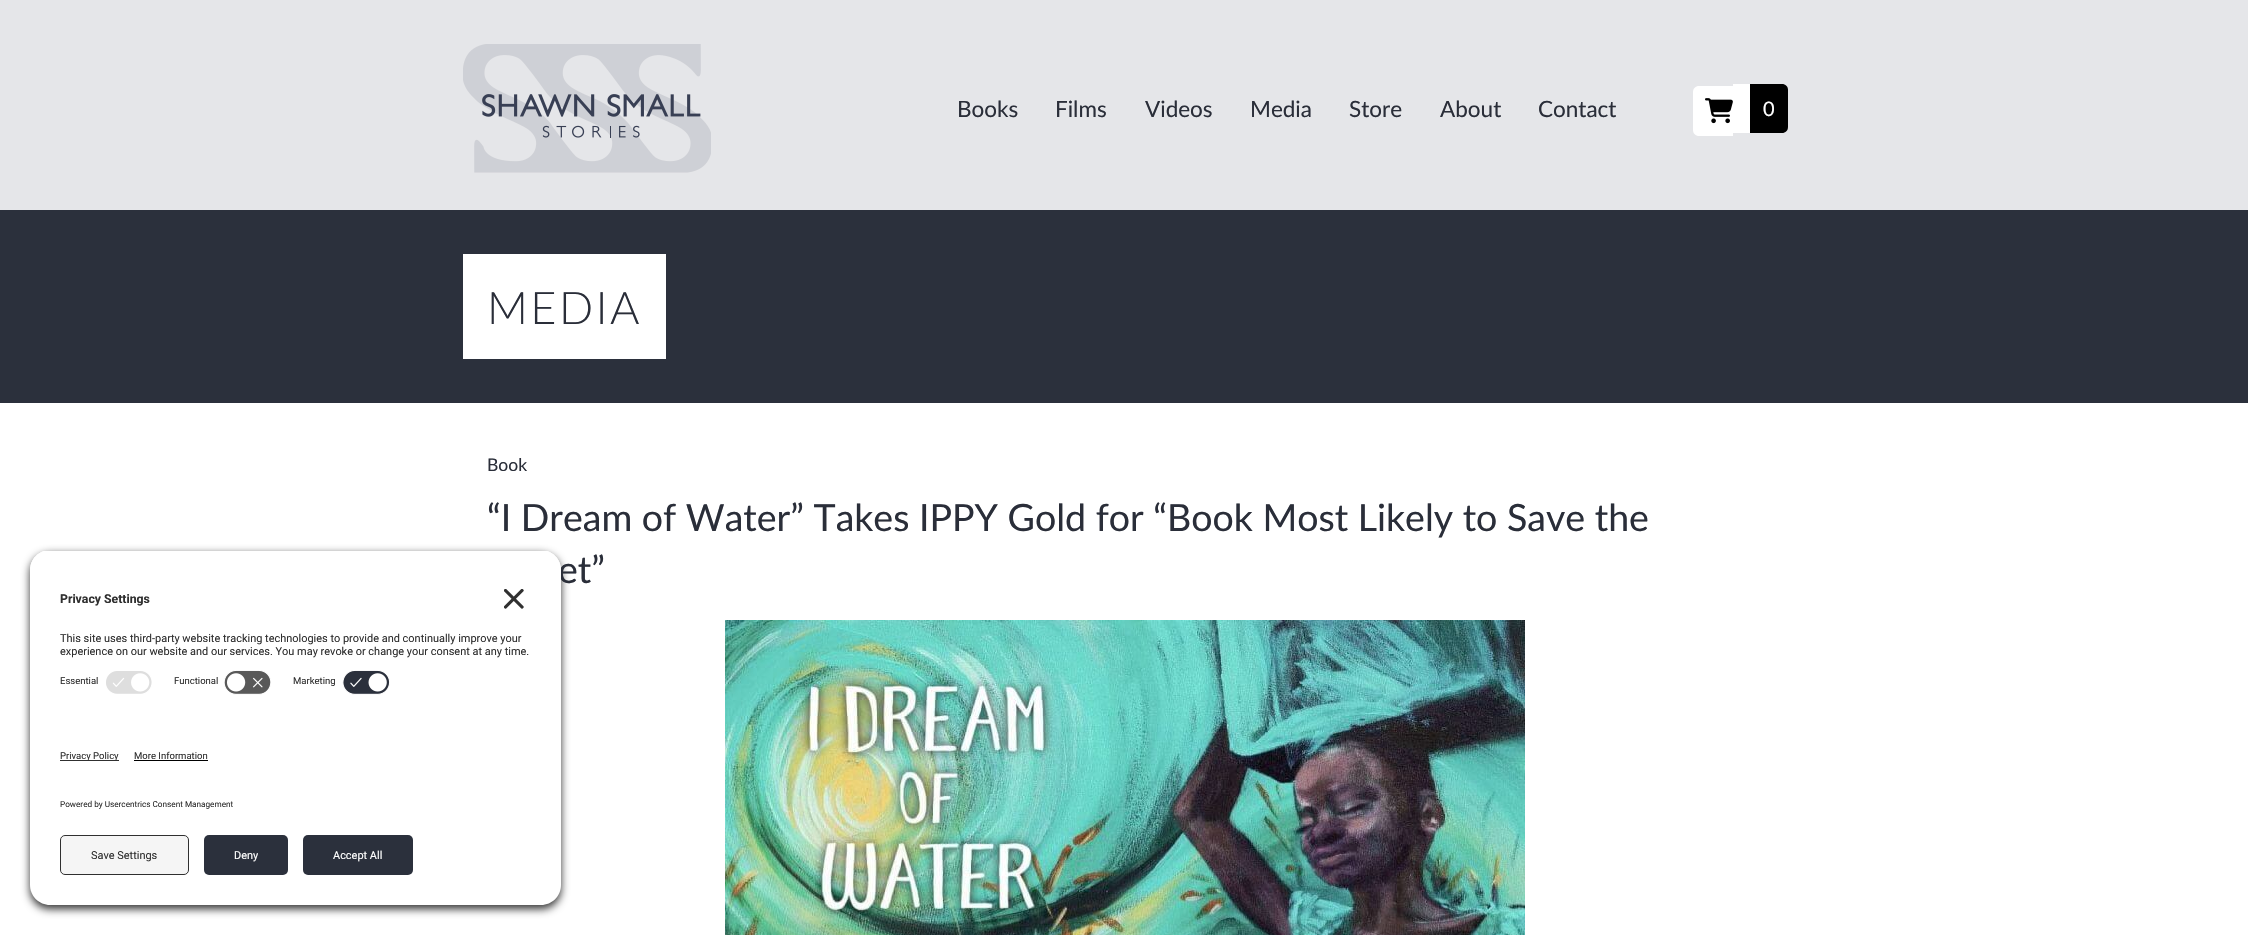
#include "include/core/SkBlurTypes.h"
#include "include/core/SkCanvas.h"
#include "include/core/SkData.h"
#include "include/core/SkFont.h"
#include "include/core/SkFontMgr.h"
#include "include/core/SkImage.h"
#include "include/core/SkMaskFilter.h"
#include "include/core/SkPaint.h"
#include "include/core/SkPathBuilder.h"
#include "include/core/SkTextBlob.h"
#include "include/effects/SkDashPathEffect.h"
#include "include/effects/SkGradientShader.h"
#include "include/utils/SkParsePath.h"

extern sk_sp<SkFontMgr> fontMgr;

void draw(SkCanvas* canvas) {
  SkPaint p;
  p.setAntiAlias(true);
  auto spacedText = [&](const char* s, float x, float y, const SkFont& font, const SkPaint& ink, float letter, float word) {
    std::vector<SkGlyphID> glyphs(font.countText(s, strlen(s), SkTextEncoding::kUTF8));
    std::vector<float> xs(glyphs.size());
    font.textToGlyphs(s, strlen(s), SkTextEncoding::kUTF8, glyphs);
    font.getXPos(glyphs, xs, x);
    float extra = 0;
    for (size_t i = 0; i < glyphs.size(); i++) {
      xs[i] += extra;
      extra += letter + word * (glyphs[i] == font.unicharToGlyph(' '));
    }
    canvas->drawTextBlob(SkTextBlob::MakeFromPosHGlyphs(glyphs, xs, y, font), 0, 0, ink);
  };
  canvas->clear(SK_ColorWHITE);
  p.setColor(SkColorSetRGB(229, 230, 233));
  canvas->drawRect(SkRect::MakeLTRB(0, 0, 2248, 210), p);
  canvas->drawImageRect(SkImages::DeferredFromEncodedData(SkData::MakeFromFileName("images/1.png")), SkRect::MakeLTRB(463, 44, 711, 173), SkSamplingOptions());
  p.setColor(SK_ColorWHITE);
  canvas->drawPath(SkPathBuilder().moveTo(1699, 86).lineTo(1733, 86).lineTo(1733, 136).lineTo(1699, 136).cubicTo(1695.5f, 136, 1693, 133.5f, 1693, 130).lineTo(1693, 92).cubicTo(1693, 88.5f, 1695.5f, 86, 1699, 86).close().detach(), p);
  canvas->drawRect(SkRect::MakeLTRB(1733, 84, 1750, 133), p);
  canvas->drawImageRect(SkImages::DeferredFromEncodedData(SkData::MakeFromFileName("images/2.png")), SkRect::MakeLTRB(1705, 98, 1733, 124), SkSamplingOptions());
  p.setColor(SK_ColorBLACK);
  canvas->drawPath(SkPathBuilder().moveTo(1750, 84).lineTo(1782, 84).cubicTo(1785.5f, 84, 1788, 86.5f, 1788, 90).lineTo(1788, 127).cubicTo(1788, 130.5f, 1785.5f, 133, 1782, 133).lineTo(1750, 133).close().detach(), p);
  p.setColor(SkColorSetRGB(43, 48, 60));
  canvas->drawRect(SkRect::MakeLTRB(0, 210, 2248, 403), p);
  p.setColor(SK_ColorWHITE);
  canvas->drawRect(SkRect::MakeLTRB(463, 254, 666, 359), p);
  canvas->drawImageRect(SkImages::DeferredFromEncodedData(SkData::MakeFromFileName("images/3.png")), SkRect::MakeLTRB(725, 620, 1525, 935), SkSamplingOptions());
  p.setColor(SkColorSetARGB(204, 0, 0, 0));
  p.setMaskFilter(SkMaskFilter::MakeBlur(kNormal_SkBlurStyle, 4.5f));
  canvas->drawRoundRect(SkRect::MakeLTRB(30, 554, 561, 909), 20, 20, p);
  p.setMaskFilter(nullptr);
  p.setColor(SK_ColorWHITE);
  canvas->drawPath(SkPathBuilder().moveTo(30, 714).lineTo(561, 714).lineTo(561, 885).cubicTo(561, 896, 552, 905, 541, 905).lineTo(50, 905).cubicTo(39, 905, 30, 896, 30, 885).close().detach(), p);
  p.setColor(SkColorSetRGB(48, 48, 48));
  canvas->drawRect(SkRect::MakeLTRB(60, 760, 119, 761), p);
  p.setColor(SK_ColorBLACK);
  canvas->drawRect(SkRect::MakeLTRB(134, 760, 208, 761), p);
  p.setColor(SkColorSetRGB(245, 245, 245));
  canvas->drawRoundRect(SkRect::MakeLTRB(60.5f, 835.5f, 188.5f, 874.5f), 4.5f, 4.5f, p);
  p.setStyle(SkPaint::kStroke_Style);
  p.setStrokeWidth(1);
  p.setColor(SkColorSetRGB(48, 48, 48));
  canvas->drawRoundRect(SkRect::MakeLTRB(60.5f, 835.5f, 188.5f, 874.5f), 4.5f, 4.5f, p);
  p.setStyle(SkPaint::kFill_Style);
  p.setColor(SkColorSetRGB(43, 48, 60));
  canvas->drawRoundRect(SkRect::MakeLTRB(204, 835, 288, 875), 5, 5, p);
  canvas->drawRoundRect(SkRect::MakeLTRB(303, 835, 413, 875), 5, 5, p);
  SkFont font1(fontMgr->matchFamilyStyle("Lato", SkFontStyle::Normal()), 22.5f);
  font1.setSubpixel(true);
  p.setColor(SkColorSetRGB(42, 46, 57));
  canvas->drawString("Books", 957, 117, font1, p);
  canvas->drawString("Films", 1055, 117, font1, p);
  canvas->drawString("Videos", 1145, 117, font1, p);
  canvas->drawString("Media", 1250, 117, font1, p);
  canvas->drawString("Store", 1349, 117, font1, p);
  canvas->drawString("About", 1440, 117, font1, p);
  canvas->drawString("Contact", 1538, 117, font1, p);
  SkFont font2(fontMgr->matchFamilyStyle("Lato", SkFontStyle::Normal()), 20);
  font2.setSubpixel(true);
  p.setColor(SK_ColorWHITE);
  canvas->drawString("0", 1763, 116, font2, p);
  SkFont font3(fontMgr->matchFamilyStyle("Lato", SkFontStyle(300, SkFontStyle::kNormal_Width, SkFontStyle::kUpright_Slant)), 45);
  font3.setSubpixel(true);
  p.setColor(SkColorSetRGB(42, 46, 57));
  spacedText("MEDIA", 487, 324, font3, p, 2.5f, 0);
  SkFont font4(fontMgr->matchFamilyStyle("Lato", SkFontStyle::Normal()), 17.5f);
  font4.setSubpixel(true);
  canvas->drawString("Book", 487, 471, font4, p);
  SkFont font5(fontMgr->matchFamilyStyle("Lato", SkFontStyle::Normal()), 37.5f);
  font5.setSubpixel(true);
  canvas->drawString("“I Dream of Water” Takes IPPY Gold for “Book Most Likely to Save the", 487, 531, font5, p);
  canvas->drawString("et”", 558, 583, font5, p);
  canvas->save();
  canvas->clipPath(SkPathBuilder().moveTo(50, 550).lineTo(541, 550).cubicTo(552, 550, 561, 559, 561, 570).lineTo(561, 714).lineTo(30, 714).lineTo(30, 570).cubicTo(30, 559, 39, 550, 50, 550).close().detach(), true);
  p.setColor(SK_ColorWHITE);
  canvas->drawRect(SkRect::MakeLTRB(30, 551, 561, 714), p);
  canvas->drawRect(SkRect::MakeLTRB(30, 551, 561, 664), p);
  canvas->restore();
  SkFont font6(fontMgr->matchFamilyStyle("Roboto", SkFontStyle::Bold()), 12.25f);
  font6.setSubpixel(true);
  p.setColor(SkColorSetRGB(48, 48, 48));
  canvas->drawString("Privacy Settings", 60, 603, font6, p);
  canvas->drawImageRect(SkImages::DeferredFromEncodedData(SkData::MakeFromFileName("images/4.png")), SkRect::MakeLTRB(504, 589, 524, 609), SkSamplingOptions());
  SkFont font7(fontMgr->matchFamilyStyle("Roboto", SkFontStyle::Normal()), 10.95f);
  font7.setSubpixel(true);
  canvas->drawString("This site uses third-party website tracking technologies to provide and continually improve your", 60, 642, font7, p);
  canvas->drawString("experience on our website and our services. You may revoke or change your consent at any time.", 60, 655, font7, p);
  SkFont font8(fontMgr->matchFamilyStyle("Roboto", SkFontStyle::Normal()), 9.5f);
  font8.setSubpixel(true);
  canvas->drawString("Essential", 60, 684, font8, p);
  canvas->drawImageRect(SkImages::DeferredFromEncodedData(SkData::MakeFromFileName("images/5.png")), SkRect::MakeLTRB(106, 671, 152, 694), SkSamplingOptions());
  canvas->drawString("Functional", 174, 684, font8, p);
  canvas->drawImageRect(SkImages::DeferredFromEncodedData(SkData::MakeFromFileName("images/6.png")), SkRect::MakeLTRB(224, 670, 271, 695), SkSamplingOptions());
  canvas->drawString("Marketing", 293, 684, font8, p);
  canvas->drawImageRect(SkImages::DeferredFromEncodedData(SkData::MakeFromFileName("images/7.png")), SkRect::MakeLTRB(342, 670, 390, 695), SkSamplingOptions());
  canvas->drawString("Privacy Policy", 60, 759, font8, p);
  canvas->drawString("More Information", 134, 759, font8, p);
  SkFont font9(fontMgr->matchFamilyStyle("Roboto", SkFontStyle::Normal()), 8.2f);
  font9.setSubpixel(true);
  canvas->drawString("Powered by Usercentrics Consent Management", 60, 807, font9, p);
  canvas->drawString("Save Settings", 91, 859, font7, p);
  p.setColor(SK_ColorWHITE);
  canvas->drawString("Deny", 234, 859, font7, p);
  canvas->drawString("Accept All", 333, 859, font7, p);
}
